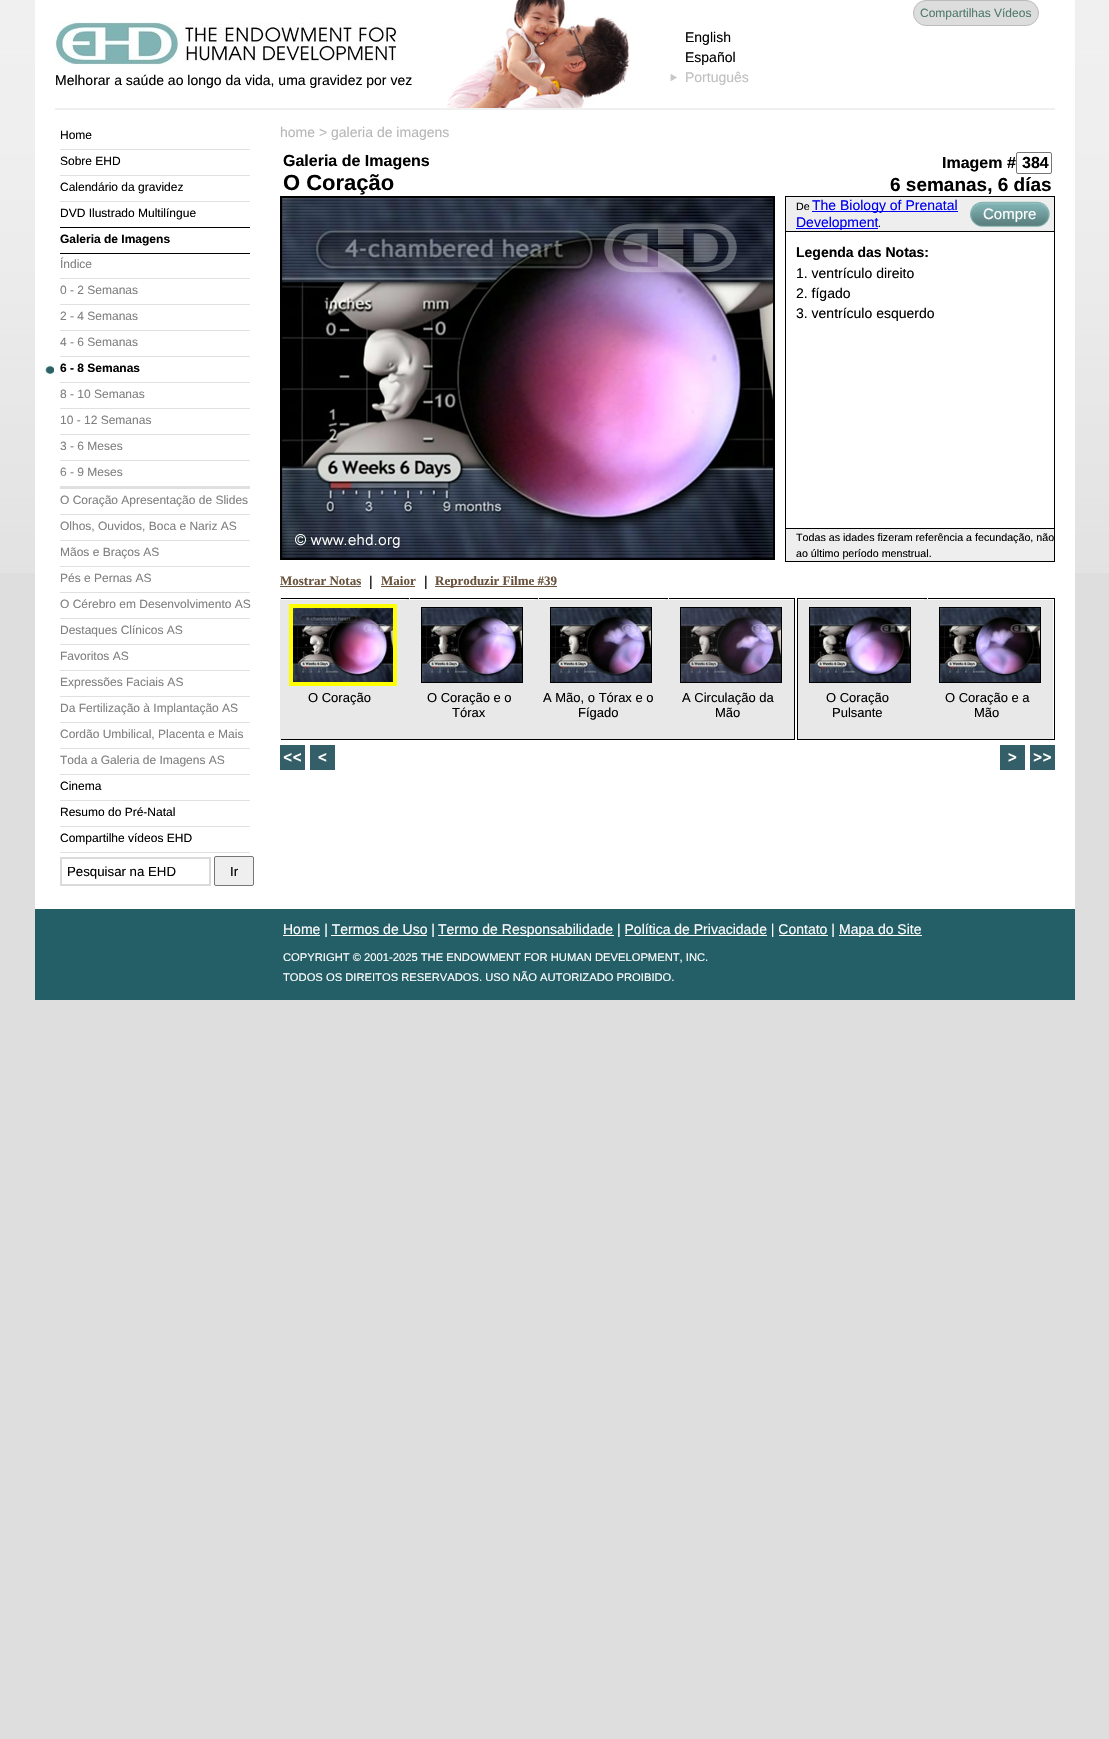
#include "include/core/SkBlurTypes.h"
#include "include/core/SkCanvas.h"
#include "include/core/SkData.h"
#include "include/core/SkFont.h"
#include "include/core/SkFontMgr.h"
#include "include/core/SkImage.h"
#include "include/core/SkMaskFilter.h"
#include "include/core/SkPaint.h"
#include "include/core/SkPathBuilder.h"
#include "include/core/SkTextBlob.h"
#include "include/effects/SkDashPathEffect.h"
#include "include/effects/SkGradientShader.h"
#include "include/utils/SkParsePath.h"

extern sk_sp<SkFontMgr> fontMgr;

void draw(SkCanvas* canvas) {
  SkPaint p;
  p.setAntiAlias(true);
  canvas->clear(SkColorSetRGB(222, 222, 222));
  canvas->drawImageRect(SkImages::DeferredFromEncodedData(SkData::MakeFromFileName("images/1.png")), SkRect::MakeLTRB(0, 0, 1109, 573), SkSamplingOptions());
  p.setColor(SK_ColorWHITE);
  canvas->drawRect(SkRect::MakeLTRB(35, 0, 1075, 909), p);
  canvas->drawImageRect(SkImages::DeferredFromEncodedData(SkData::MakeFromFileName("images/2.png")), SkRect::MakeLTRB(447, 0, 631, 108), SkSamplingOptions());
  p.setColor(SkColorSetRGB(221, 221, 221));
  canvas->drawRoundRect(SkRect::MakeLTRB(913.5f, 0.5f, 1038.5f, 25.5f), 12.5f, 12.5f, p);
  p.setStyle(SkPaint::kStroke_Style);
  p.setStrokeWidth(1);
  p.setColor(SkColorSetRGB(187, 187, 187));
  canvas->drawRoundRect(SkRect::MakeLTRB(913.5f, 0.5f, 1038.5f, 25.5f), 12.5f, 12.5f, p);
  canvas->drawImageRect(SkImages::DeferredFromEncodedData(SkData::MakeFromFileName("images/3.png")), SkRect::MakeLTRB(55, 22, 397, 65), SkSamplingOptions());
  canvas->drawImageRect(SkImages::DeferredFromEncodedData(SkData::MakeFromFileName("images/4.png")), SkRect::MakeLTRB(670, 74, 677, 81), SkSamplingOptions());
  p.setStyle(SkPaint::kFill_Style);
  p.setColor(SkColorSetRGB(240, 240, 240));
  canvas->drawRect(SkRect::MakeLTRB(55, 108, 1055, 110), p);
  p.setColor(SkColorSetRGB(224, 224, 224));
  canvas->drawRect(SkRect::MakeLTRB(60, 149, 250, 150), p);
  canvas->drawRect(SkRect::MakeLTRB(60, 175, 250, 176), p);
  canvas->drawRect(SkRect::MakeLTRB(60, 201, 250, 202), p);
  canvas->drawRect(SkRect::MakeLTRB(60, 774, 250, 775), p);
  p.setColor(SK_ColorBLACK);
  canvas->drawRect(SkRect::MakeLTRB(60, 227, 250, 228), p);
  canvas->drawRect(SkRect::MakeLTRB(60, 253, 250, 254), p);
  p.setColor(SkColorSetRGB(224, 224, 224));
  canvas->drawRect(SkRect::MakeLTRB(60, 278, 250, 279), p);
  canvas->drawRect(SkRect::MakeLTRB(60, 304, 250, 305), p);
  canvas->drawRect(SkRect::MakeLTRB(60, 330, 250, 331), p);
  canvas->drawRect(SkRect::MakeLTRB(60, 356, 250, 357), p);
  canvas->drawRect(SkRect::MakeLTRB(60, 382, 250, 383), p);
  canvas->drawImageRect(SkImages::DeferredFromEncodedData(SkData::MakeFromFileName("images/5.png")), SkRect::MakeLTRB(45, 365, 54, 374), SkSamplingOptions());
  canvas->drawRect(SkRect::MakeLTRB(60, 408, 250, 409), p);
  canvas->drawRect(SkRect::MakeLTRB(60, 434, 250, 435), p);
  canvas->drawRect(SkRect::MakeLTRB(60, 460, 250, 461), p);
  canvas->drawRect(SkRect::MakeLTRB(60, 514, 250, 515), p);
  canvas->drawRect(SkRect::MakeLTRB(60, 486, 250, 489), p);
  canvas->drawRect(SkRect::MakeLTRB(60, 540, 250, 541), p);
  canvas->drawRect(SkRect::MakeLTRB(60, 566, 250, 567), p);
  canvas->drawRect(SkRect::MakeLTRB(60, 592, 250, 593), p);
  canvas->drawRect(SkRect::MakeLTRB(60, 618, 250, 619), p);
  canvas->drawRect(SkRect::MakeLTRB(60, 644, 250, 645), p);
  canvas->drawRect(SkRect::MakeLTRB(60, 670, 250, 671), p);
  canvas->drawRect(SkRect::MakeLTRB(60, 696, 250, 697), p);
  canvas->drawRect(SkRect::MakeLTRB(60, 722, 250, 723), p);
  canvas->drawRect(SkRect::MakeLTRB(60, 748, 250, 749), p);
  canvas->drawRect(SkRect::MakeLTRB(60, 800, 250, 801), p);
  canvas->drawRect(SkRect::MakeLTRB(60, 826, 250, 827), p);
  canvas->drawRect(SkRect::MakeLTRB(60, 852, 250, 853), p);
  p.setStyle(SkPaint::kStroke_Style);
  p.setStrokeWidth(2);
  p.setColor(SkColorSetRGB(219, 219, 219));
  canvas->drawRect(SkRect::MakeLTRB(61, 858, 210, 885), p);
  p.setStyle(SkPaint::kFill_Style);
  p.setColor(SkColorSetRGB(239, 239, 239));
  canvas->drawRoundRect(SkRect::MakeLTRB(214.5f, 856.5f, 253.5f, 885.5f), 1.5f, 1.5f, p);
  p.setStyle(SkPaint::kStroke_Style);
  p.setStrokeWidth(1);
  p.setColor(SkColorSetRGB(118, 118, 118));
  canvas->drawRoundRect(SkRect::MakeLTRB(214.5f, 856.5f, 253.5f, 885.5f), 1.5f, 1.5f, p);
  canvas->drawRoundRect(SkRect::MakeLTRB(1016.5f, 152.5f, 1051.5f, 173.5f), 1.5f, 1.5f, p);
  p.setStrokeWidth(2);
  p.setColor(SK_ColorBLACK);
  canvas->drawRect(SkRect::MakeLTRB(281, 197, 774, 559), p);
  canvas->drawImageRect(SkImages::DeferredFromEncodedData(SkData::MakeFromFileName("images/6.png")), SkRect::MakeLTRB(282, 198, 773, 558), SkSamplingOptions());
  p.setStyle(SkPaint::kFill_Style);
  p.setColor(SkColorSetRGB(238, 238, 238));
  canvas->drawRect(SkRect::MakeLTRB(786, 197, 1054, 231), p);
  p.setColor(SK_ColorBLACK);
  canvas->drawRect(SkRect::MakeLTRB(785, 196, 1055, 197), p);
  canvas->drawRect(SkRect::MakeLTRB(1054, 196, 1055, 231), p);
  canvas->drawRect(SkRect::MakeLTRB(785, 196, 786, 231), p);
  p.setColor(SkColorSetRGB(0, 0, 238));
  canvas->drawRect(SkRect::MakeLTRB(812, 211, 958, 212), p);
  canvas->drawRect(SkRect::MakeLTRB(796, 228, 878, 229), p);
  canvas->drawImageRect(SkImages::DeferredFromEncodedData(SkData::MakeFromFileName("images/7.png")), SkRect::MakeLTRB(970, 201, 1050, 227), SkSamplingOptions());
  p.setStyle(SkPaint::kStroke_Style);
  p.setStrokeWidth(1);
  p.setColor(SK_ColorBLACK);
  canvas->drawRect(SkRect::MakeLTRB(785.5f, 231.5f, 1054.5f, 528.5f), p);
  p.setStyle(SkPaint::kFill_Style);
  p.setColor(SkColorSetRGB(238, 238, 238));
  canvas->drawRect(SkRect::MakeLTRB(786, 529, 1054, 561), p);
  p.setColor(SK_ColorBLACK);
  canvas->drawRect(SkRect::MakeLTRB(1054, 529, 1055, 562), p);
  canvas->drawRect(SkRect::MakeLTRB(785, 561, 1055, 562), p);
  canvas->drawRect(SkRect::MakeLTRB(785, 529, 786, 562), p);
  p.setColor(SkColorSetRGB(105, 83, 62));
  canvas->drawRect(SkRect::MakeLTRB(280, 586, 361, 587), p);
  canvas->drawRect(SkRect::MakeLTRB(381, 586, 415, 587), p);
  canvas->drawRect(SkRect::MakeLTRB(435, 586, 557, 587), p);
  p.setColor(SkColorSetRGB(232, 232, 232));
  canvas->drawRect(SkRect::MakeLTRB(281, 600, 406, 739), p);
  canvas->drawRect(SkRect::MakeLTRB(407, 599, 409, 740), p);
  canvas->drawRect(SkRect::MakeLTRB(536, 599, 538, 740), p);
  canvas->drawRect(SkRect::MakeLTRB(666, 599, 668, 740), p);
  p.setColor(SK_ColorBLACK);
  canvas->drawRect(SkRect::MakeLTRB(794, 598, 795, 740), p);
  canvas->drawRect(SkRect::MakeLTRB(665, 598, 795, 599), p);
  canvas->drawRect(SkRect::MakeLTRB(668, 739, 795, 740), p);
  p.setColor(SkColorSetRGB(232, 232, 232));
  canvas->drawRect(SkRect::MakeLTRB(668, 598, 669, 740), p);
  p.setColor(SK_ColorBLACK);
  canvas->drawRect(SkRect::MakeLTRB(665, 739, 669, 740), p);
  p.setColor(SkColorSetRGB(232, 232, 232));
  canvas->drawRect(SkRect::MakeLTRB(665, 598, 666, 740), p);
  p.setColor(SK_ColorBLACK);
  canvas->drawRect(SkRect::MakeLTRB(535, 598, 666, 599), p);
  canvas->drawRect(SkRect::MakeLTRB(538, 739, 666, 740), p);
  p.setColor(SkColorSetRGB(232, 232, 232));
  canvas->drawRect(SkRect::MakeLTRB(538, 598, 539, 740), p);
  p.setColor(SK_ColorBLACK);
  canvas->drawRect(SkRect::MakeLTRB(535, 739, 539, 740), p);
  p.setColor(SkColorSetRGB(232, 232, 232));
  canvas->drawRect(SkRect::MakeLTRB(535, 598, 536, 740), p);
  p.setColor(SK_ColorBLACK);
  canvas->drawRect(SkRect::MakeLTRB(406, 598, 536, 599), p);
  canvas->drawRect(SkRect::MakeLTRB(409, 739, 536, 740), p);
  p.setColor(SkColorSetRGB(232, 232, 232));
  canvas->drawRect(SkRect::MakeLTRB(409, 598, 410, 740), p);
  p.setColor(SK_ColorBLACK);
  canvas->drawRect(SkRect::MakeLTRB(406, 739, 410, 740), p);
  p.setColor(SkColorSetRGB(232, 232, 232));
  canvas->drawRect(SkRect::MakeLTRB(406, 598, 407, 740), p);
  p.setColor(SK_ColorBLACK);
  canvas->drawRect(SkRect::MakeLTRB(280, 598, 407, 599), p);
  canvas->drawRect(SkRect::MakeLTRB(280, 739, 407, 740), p);
  p.setColor(SkColorSetRGB(232, 232, 232));
  canvas->drawRect(SkRect::MakeLTRB(280, 598, 281, 740), p);
  p.setStyle(SkPaint::kStroke_Style);
  p.setStrokeWidth(4);
  p.setColor(SkColorSetRGB(255, 255, 0));
  canvas->drawRect(SkRect::MakeLTRB(291, 606, 395, 684), p);
  canvas->drawImageRect(SkImages::DeferredFromEncodedData(SkData::MakeFromFileName("images/8.png")), SkRect::MakeLTRB(293, 608, 393, 682), SkSamplingOptions());
  p.setStyle(SkPaint::kFill_Style);
  p.setColor(SkColorSetRGB(232, 232, 232));
  canvas->drawRect(SkRect::MakeLTRB(410, 600, 535, 739), p);
  p.setStyle(SkPaint::kStroke_Style);
  p.setStrokeWidth(1);
  p.setColor(SK_ColorBLACK);
  canvas->drawRect(SkRect::MakeLTRB(421.5f, 607.5f, 522.5f, 682.5f), p);
  canvas->drawImageRect(SkImages::DeferredFromEncodedData(SkData::MakeFromFileName("images/9.png")), SkRect::MakeLTRB(422, 608, 522, 682), SkSamplingOptions());
  p.setStyle(SkPaint::kFill_Style);
  p.setColor(SkColorSetRGB(232, 232, 232));
  canvas->drawRect(SkRect::MakeLTRB(539, 600, 665, 739), p);
  p.setStyle(SkPaint::kStroke_Style);
  p.setColor(SK_ColorBLACK);
  canvas->drawRect(SkRect::MakeLTRB(550.5f, 607.5f, 651.5f, 682.5f), p);
  canvas->drawImageRect(SkImages::DeferredFromEncodedData(SkData::MakeFromFileName("images/10.png")), SkRect::MakeLTRB(551, 608, 651, 682), SkSamplingOptions());
  p.setStyle(SkPaint::kFill_Style);
  p.setColor(SkColorSetRGB(232, 232, 232));
  canvas->drawRect(SkRect::MakeLTRB(669, 600, 794, 739), p);
  p.setStyle(SkPaint::kStroke_Style);
  p.setColor(SK_ColorBLACK);
  canvas->drawRect(SkRect::MakeLTRB(680.5f, 607.5f, 781.5f, 682.5f), p);
  canvas->drawImageRect(SkImages::DeferredFromEncodedData(SkData::MakeFromFileName("images/11.png")), SkRect::MakeLTRB(681, 608, 781, 682), SkSamplingOptions());
  p.setStyle(SkPaint::kFill_Style);
  p.setColor(SkColorSetRGB(232, 232, 232));
  canvas->drawRect(SkRect::MakeLTRB(925, 599, 927, 740), p);
  p.setColor(SK_ColorBLACK);
  canvas->drawRect(SkRect::MakeLTRB(924, 598, 1055, 599), p);
  canvas->drawRect(SkRect::MakeLTRB(1054, 598, 1055, 740), p);
  canvas->drawRect(SkRect::MakeLTRB(927, 739, 1055, 740), p);
  p.setColor(SkColorSetRGB(232, 232, 232));
  canvas->drawRect(SkRect::MakeLTRB(927, 598, 928, 740), p);
  p.setColor(SK_ColorBLACK);
  canvas->drawRect(SkRect::MakeLTRB(924, 739, 928, 740), p);
  p.setColor(SkColorSetRGB(232, 232, 232));
  canvas->drawRect(SkRect::MakeLTRB(924, 598, 925, 740), p);
  p.setColor(SK_ColorBLACK);
  canvas->drawRect(SkRect::MakeLTRB(797, 598, 925, 599), p);
  canvas->drawRect(SkRect::MakeLTRB(797, 739, 925, 740), p);
  canvas->drawRect(SkRect::MakeLTRB(797, 598, 798, 740), p);
  p.setColor(SkColorSetRGB(232, 232, 232));
  canvas->drawRect(SkRect::MakeLTRB(798, 600, 924, 739), p);
  p.setStyle(SkPaint::kStroke_Style);
  p.setColor(SK_ColorBLACK);
  canvas->drawRect(SkRect::MakeLTRB(809.5f, 607.5f, 910.5f, 682.5f), p);
  canvas->drawImageRect(SkImages::DeferredFromEncodedData(SkData::MakeFromFileName("images/12.png")), SkRect::MakeLTRB(810, 608, 910, 682), SkSamplingOptions());
  p.setStyle(SkPaint::kFill_Style);
  p.setColor(SkColorSetRGB(232, 232, 232));
  canvas->drawRect(SkRect::MakeLTRB(928, 600, 1053, 739), p);
  p.setStyle(SkPaint::kStroke_Style);
  p.setColor(SK_ColorBLACK);
  canvas->drawRect(SkRect::MakeLTRB(939.5f, 607.5f, 1040.5f, 682.5f), p);
  canvas->drawImageRect(SkImages::DeferredFromEncodedData(SkData::MakeFromFileName("images/13.png")), SkRect::MakeLTRB(940, 608, 1040, 682), SkSamplingOptions());
  canvas->drawImageRect(SkImages::DeferredFromEncodedData(SkData::MakeFromFileName("images/14.png")), SkRect::MakeLTRB(280, 745, 305, 770), SkSamplingOptions());
  canvas->drawImageRect(SkImages::DeferredFromEncodedData(SkData::MakeFromFileName("images/15.png")), SkRect::MakeLTRB(310, 745, 335, 770), SkSamplingOptions());
  canvas->drawImageRect(SkImages::DeferredFromEncodedData(SkData::MakeFromFileName("images/16.png")), SkRect::MakeLTRB(1000, 745, 1025, 770), SkSamplingOptions());
  canvas->drawImageRect(SkImages::DeferredFromEncodedData(SkData::MakeFromFileName("images/17.png")), SkRect::MakeLTRB(1030, 745, 1055, 770), SkSamplingOptions());
  p.setStyle(SkPaint::kFill_Style);
  p.setColor(SkColorSetRGB(36, 95, 104));
  canvas->drawRect(SkRect::MakeLTRB(35, 909, 1075, 1000), p);
  p.setColor(SK_ColorWHITE);
  canvas->drawRect(SkRect::MakeLTRB(283, 935, 320, 936), p);
  canvas->drawRect(SkRect::MakeLTRB(438, 935, 614, 936), p);
  canvas->drawRect(SkRect::MakeLTRB(839, 935, 922, 936), p);
  canvas->drawRect(SkRect::MakeLTRB(331, 935, 427, 936), p);
  canvas->drawRect(SkRect::MakeLTRB(625, 935, 767, 936), p);
  canvas->drawRect(SkRect::MakeLTRB(779, 935, 828, 936), p);
  SkFont font1(fontMgr->matchFamilyStyle("Liberation Sans", SkFontStyle::Normal()), 12);
  font1.setSubpixel(true);
  p.setColor(SkColorSetRGB(80, 122, 108));
  canvas->drawString("Compartilhas Vídeos", 920, 17, font1, p);
  SkFont font2(fontMgr->matchFamilyStyle("Liberation Sans", SkFontStyle::Normal()), 14);
  font2.setSubpixel(true);
  p.setColor(SK_ColorBLACK);
  canvas->drawString("Melhorar a saúde ao longo da vida, uma gravidez por vez", 55, 85, font2, p);
  canvas->drawString("English", 685, 42, font2, p);
  canvas->drawString("Español", 685, 62, font2, p);
  p.setColor(SkColorSetRGB(192, 192, 192));
  canvas->drawString("Português", 685, 82, font2, p);
  p.setColor(SK_ColorBLACK);
  canvas->drawString("Home", 60, 139, font1, p);
  canvas->drawString("Sobre EHD", 60, 165, font1, p);
  canvas->drawString("Calendário da gravidez", 60, 191, font1, p);
  canvas->drawString("DVD Ilustrado Multilíngue", 60, 217, font1, p);
  SkFont font3(fontMgr->matchFamilyStyle("Liberation Sans", SkFontStyle::Bold()), 12);
  font3.setSubpixel(true);
  canvas->drawString("Galeria de Imagens", 60, 243, font3, p);
  p.setColor(SkColorSetRGB(128, 128, 128));
  canvas->drawString("Índice", 60, 268, font1, p);
  canvas->drawString("0 - 2 Semanas", 60, 294, font1, p);
  canvas->drawString("2 - 4 Semanas", 60, 320, font1, p);
  canvas->drawString("4 - 6 Semanas", 60, 346, font1, p);
  p.setColor(SK_ColorBLACK);
  canvas->drawString("6 - 8 Semanas", 60, 372, font3, p);
  p.setColor(SkColorSetRGB(128, 128, 128));
  canvas->drawString("8 - 10 Semanas", 60, 398, font1, p);
  canvas->drawString("10 - 12 Semanas", 60, 424, font1, p);
  canvas->drawString("3 - 6 Meses", 60, 450, font1, p);
  canvas->drawString("6 - 9 Meses", 60, 476, font1, p);
  canvas->drawString("O Coração Apresentação de Slides", 60, 504, font1, p);
  canvas->drawString("Olhos, Ouvidos, Boca e Nariz AS", 60, 530, font1, p);
  canvas->drawString("Mãos e Braços AS", 60, 556, font1, p);
  canvas->drawString("Pés e Pernas AS", 60, 582, font1, p);
  canvas->drawString("O Cérebro em Desenvolvimento AS", 60, 608, font1, p);
  canvas->drawString("Destaques Clínicos AS", 60, 634, font1, p);
  canvas->drawString("Favoritos AS", 60, 660, font1, p);
  canvas->drawString("Expressões Faciais AS", 60, 686, font1, p);
  canvas->drawString("Da Fertilização à Implantação AS", 60, 712, font1, p);
  canvas->drawString("Cordão Umbilical, Placenta e Mais", 60, 738, font1, p);
  canvas->drawString("Toda a Galeria de Imagens AS", 60, 764, font1, p);
  p.setColor(SK_ColorBLACK);
  canvas->drawString("Cinema", 60, 790, font1, p);
  canvas->drawString("Resumo do Pré-Natal", 60, 816, font1, p);
  canvas->drawString("Compartilhe vídeos EHD", 60, 842, font1, p);
  SkFont font4(fontMgr->matchFamilyStyle("Liberation Sans", SkFontStyle::Normal()), 13.25f);
  font4.setSubpixel(true);
  canvas->drawString("Pesquisar na EHD", 67, 876, font4, p);
  canvas->drawString("Ir", 230, 876, font4, p);
  p.setColor(SkColorSetRGB(183, 183, 183));
  canvas->drawString("home > galeria de imagens", 280, 137, font2, p);
  SkFont font5(fontMgr->matchFamilyStyle("Liberation Sans", SkFontStyle::Bold()), 16);
  font5.setSubpixel(true);
  p.setColor(SK_ColorBLACK);
  canvas->drawString("Galeria de Imagens", 283, 166, font5, p);
  SkFont font6(fontMgr->matchFamilyStyle("Liberation Sans", SkFontStyle::Bold()), 22);
  font6.setSubpixel(true);
  canvas->drawString("O Coração", 283, 190, font6, p);
  canvas->drawString("Imagem #", 942, 168, font5, p);
  canvas->drawString("384", 1022, 168, font5, p);
  SkFont font7(fontMgr->matchFamilyStyle("Liberation Sans", SkFontStyle::Bold()), 19);
  font7.setSubpixel(true);
  canvas->drawString("6 semanas, 6 días", 890, 191, font7, p);
  SkFont font8(fontMgr->matchFamilyStyle("Liberation Sans", SkFontStyle::Normal()), 10.7f);
  font8.setSubpixel(true);
  canvas->drawString("De", 796, 210, font8, p);
  p.setColor(SkColorSetRGB(0, 0, 238));
  canvas->drawString("The Biology of Prenatal", 812, 210, font2, p);
  canvas->drawString("Development", 796, 227, font2, p);
  p.setColor(SK_ColorBLACK);
  canvas->drawString(".", 878, 227, font8, p);
  SkFont font9(fontMgr->matchFamilyStyle("Liberation Sans", SkFontStyle::Normal()), 15);
  font9.setSubpixel(true);
  p.setColor(SK_ColorWHITE);
  canvas->drawString("Compre", 983, 219, font9, p);
  SkFont font10(fontMgr->matchFamilyStyle("Liberation Sans", SkFontStyle::Bold()), 14);
  font10.setSubpixel(true);
  p.setColor(SK_ColorBLACK);
  canvas->drawString("Legenda das Notas:", 796, 257, font10, p);
  canvas->drawString("1. ventrículo direito", 796, 278, font2, p);
  canvas->drawString("2. fígado", 796, 298, font2, p);
  canvas->drawString("3. ventrículo esquerdo", 796, 318, font2, p);
  canvas->drawString("Todas as idades fizeram referência a fecundação, não", 796, 541, font8, p);
  canvas->drawString("ao último período menstrual.", 796, 557, font8, p);
  SkFont font11(fontMgr->matchFamilyStyle("Liberation Serif", SkFontStyle::Bold()), 13);
  font11.setSubpixel(true);
  p.setColor(SkColorSetRGB(105, 83, 62));
  canvas->drawString("Mostrar Notas", 280, 585, font11, p);
  p.setColor(SK_ColorBLACK);
  canvas->drawString("|", 369, 586, font2, p);
  p.setColor(SkColorSetRGB(105, 83, 62));
  canvas->drawString("Maior", 381, 585, font11, p);
  p.setColor(SK_ColorBLACK);
  canvas->drawString("|", 424, 586, font2, p);
  p.setColor(SkColorSetRGB(105, 83, 62));
  canvas->drawString("Reproduzir Filme #39", 435, 585, font11, p);
  SkFont font12(fontMgr->matchFamilyStyle("Liberation Sans", SkFontStyle::Normal()), 13);
  font12.setSubpixel(true);
  p.setColor(SK_ColorBLACK);
  canvas->drawString("O Coração", 308, 702, font12, p);
  canvas->drawString("O Coração e o", 427, 702, font12, p);
  canvas->drawString("Tórax", 452, 717, font12, p);
  canvas->drawString("A Mão, o Tórax e o", 543, 702, font12, p);
  canvas->drawString("Fígado", 578, 717, font12, p);
  canvas->drawString("A Circulação da", 682, 702, font12, p);
  canvas->drawString("Mão", 715, 717, font12, p);
  canvas->drawString("O Coração", 826, 702, font12, p);
  canvas->drawString("Pulsante", 832, 717, font12, p);
  canvas->drawString("O Coração e a", 945, 702, font12, p);
  canvas->drawString("Mão", 974, 717, font12, p);
  p.setColor(SK_ColorWHITE);
  canvas->drawString("Home | Termos de Uso |", 283, 934, font2, p);
  canvas->drawString("Termo de Responsabilidade | Política de Privacidade | Contato |", 438, 934, font2, p);
  canvas->drawString("Mapa do Site", 839, 934, font2, p);
  SkFont font13(fontMgr->matchFamilyStyle("Liberation Sans", SkFontStyle::Normal()), 11.2f);
  font13.setSubpixel(true);
  canvas->drawString("COPYRIGHT © 2001-2025 THE ENDOWMENT FOR HUMAN DEVELOPMENT, INC.", 283, 961, font13, p);
  canvas->drawString("TODOS OS DIREITOS RESERVADOS. USO NÃO AUTORIZADO PROIBIDO.", 283, 981, font13, p);
}
